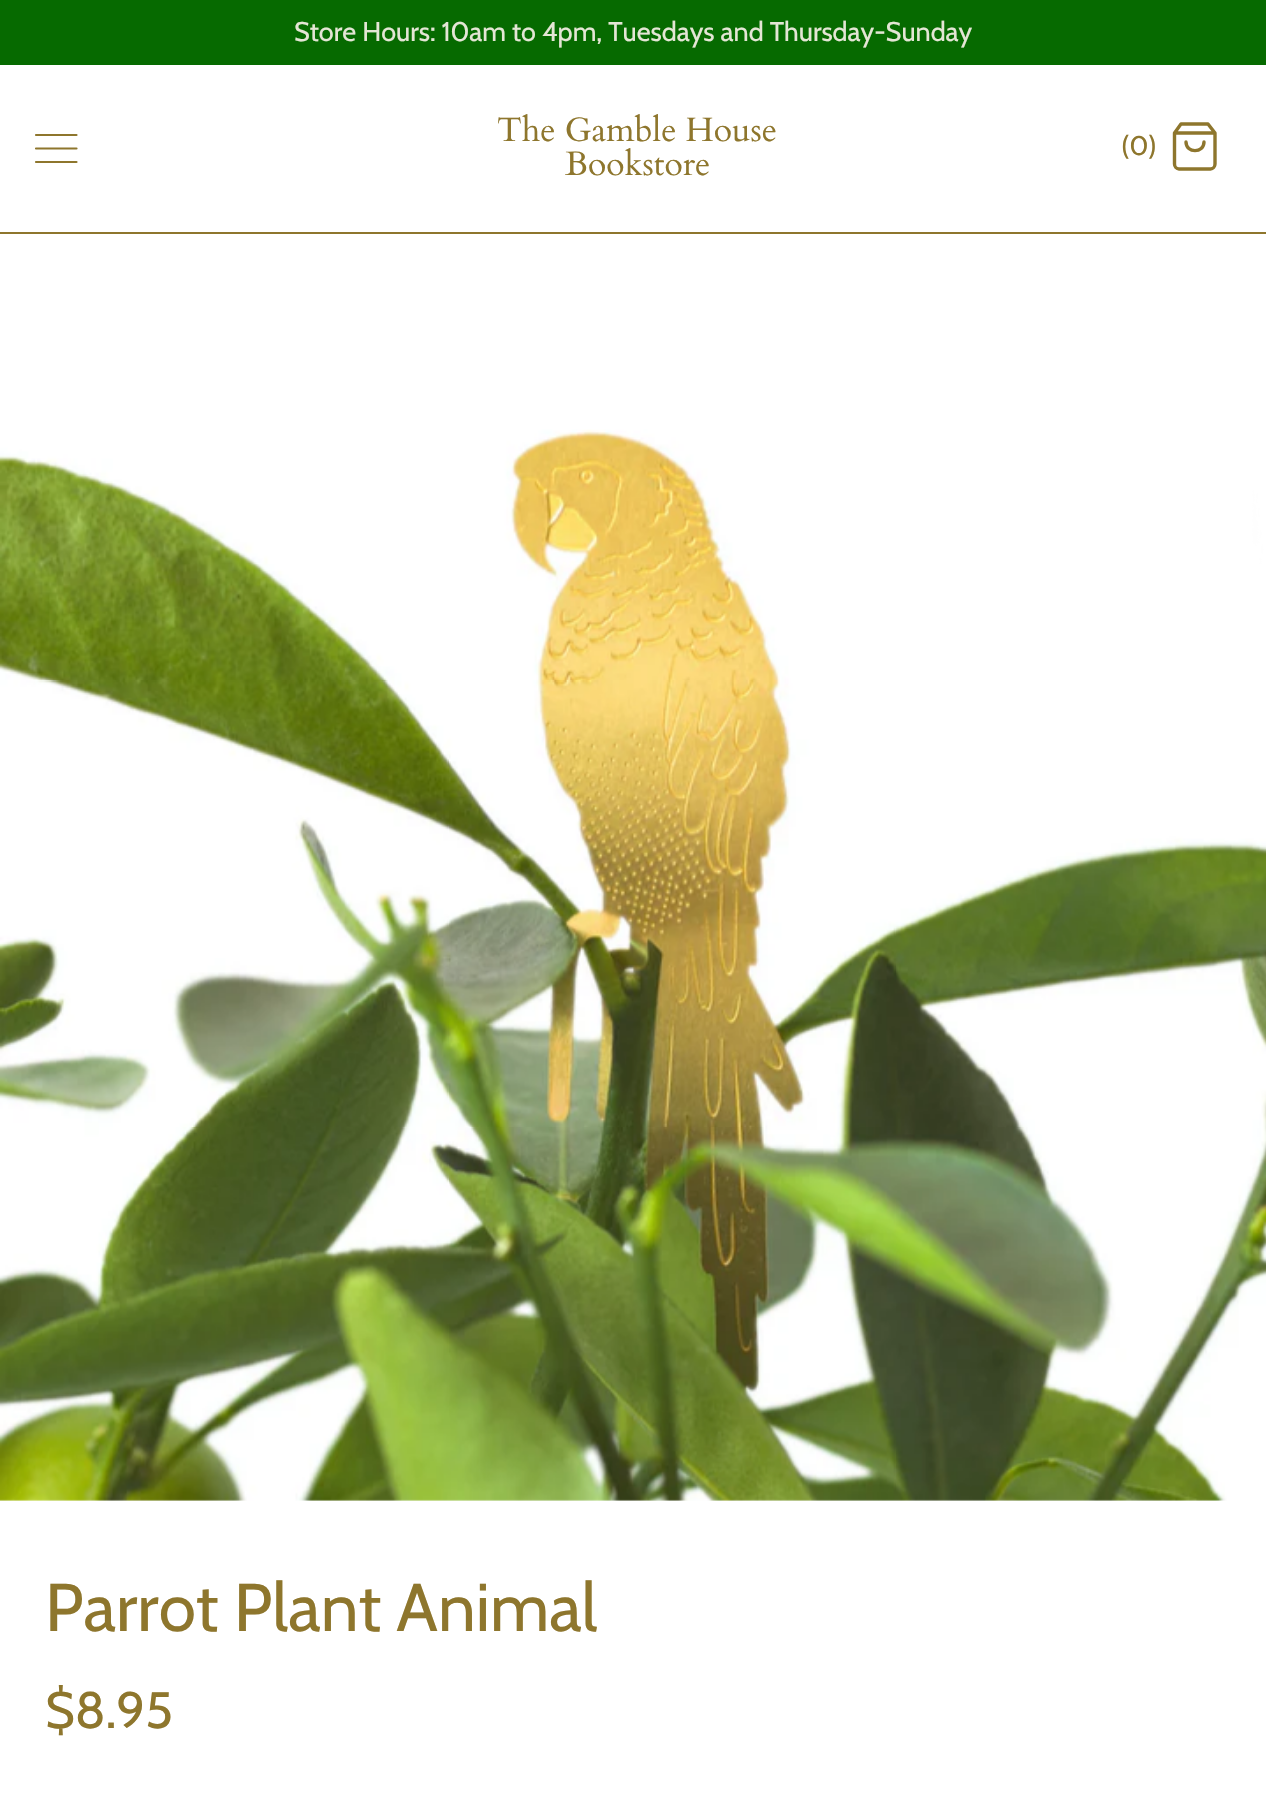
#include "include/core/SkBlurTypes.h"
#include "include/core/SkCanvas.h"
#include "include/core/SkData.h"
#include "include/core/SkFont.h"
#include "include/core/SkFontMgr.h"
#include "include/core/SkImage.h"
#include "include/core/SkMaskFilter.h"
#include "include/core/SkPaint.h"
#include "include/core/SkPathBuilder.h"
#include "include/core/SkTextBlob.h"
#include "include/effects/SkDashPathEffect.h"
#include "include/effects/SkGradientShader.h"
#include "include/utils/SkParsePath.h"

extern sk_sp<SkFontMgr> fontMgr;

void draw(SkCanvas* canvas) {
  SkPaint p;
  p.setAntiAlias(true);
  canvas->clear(SK_ColorWHITE);
  p.setColor(SkColorSetRGB(6, 106, 0));
  canvas->drawRect(SkRect::MakeLTRB(0, 0, 1266, 65), p);
  p.setColor(SkColorSetRGB(142, 118, 45));
  canvas->drawRect(SkRect::MakeLTRB(0, 232, 1266, 234), p);
  p.setStyle(SkPaint::kStroke_Style);
  p.setStrokeWidth(2.2f);
  p.setStrokeCap(SkPaint::kRound_Cap);
  p.setStrokeJoin(SkPaint::kRound_Join);
  canvas->drawPath(SkPathBuilder().moveTo(36, 148.5f).lineTo(76.5f, 148.5f).moveTo(36, 135).lineTo(76.5f, 135).moveTo(36, 162).lineTo(76.5f, 162).detach(), p);
  p.setStrokeWidth(3.4f);
  canvas->drawPath(SkPathBuilder().moveTo(1181, 124).lineTo(1174.5f, 133).lineTo(1174.5f, 164).cubicTo(1174.5f, 166.5f, 1176.5f, 169, 1179, 169).lineTo(1210.5f, 169).cubicTo(1213, 169, 1215, 166.5f, 1215, 164).lineTo(1215, 133).lineTo(1208, 124).close().moveTo(1174.5f, 133).lineTo(1215, 133).moveTo(1204, 142).cubicTo(1204, 153.5f, 1186, 153.5f, 1186, 142).detach(), p);
  canvas->drawImageRect(SkImages::DeferredFromEncodedData(SkData::MakeFromFileName("images/1.png")), SkRect::MakeLTRB(0, 429, 1266, 1501), SkSamplingOptions());
  SkFont font1(fontMgr->matchFamilyStyle("Cabin", SkFontStyle::Normal()), 27);
  font1.setSubpixel(true);
  p.setStyle(SkPaint::kFill_Style);
  p.setColor(SkColorSetRGB(228, 230, 213));
  canvas->drawString("Store Hours: 10am to 4pm, Tuesdays and Thursday-Sunday", 294, 41, font1, p);
  SkFont font2(fontMgr->matchFamilyStyle("Cardo", SkFontStyle::Normal()), 33.75f);
  font2.setSubpixel(true);
  p.setColor(SkColorSetRGB(142, 118, 45));
  canvas->drawString("The Gamble House", 497, 141, font2, p);
  canvas->drawString("Bookstore", 565, 175, font2, p);
  canvas->drawString("(0)", 1121, 155, font1, p);
  SkFont font3(fontMgr->matchFamilyStyle("Cabin", SkFontStyle::Normal()), 67.5f);
  font3.setSubpixel(true);
  canvas->drawString("Parrot Plant Animal", 45, 1631, font3, p);
  SkFont font4(fontMgr->matchFamilyStyle("Cabin", SkFontStyle::Normal()), 51);
  font4.setSubpixel(true);
  canvas->drawString("$8.95", 45, 1728, font4, p);
}
